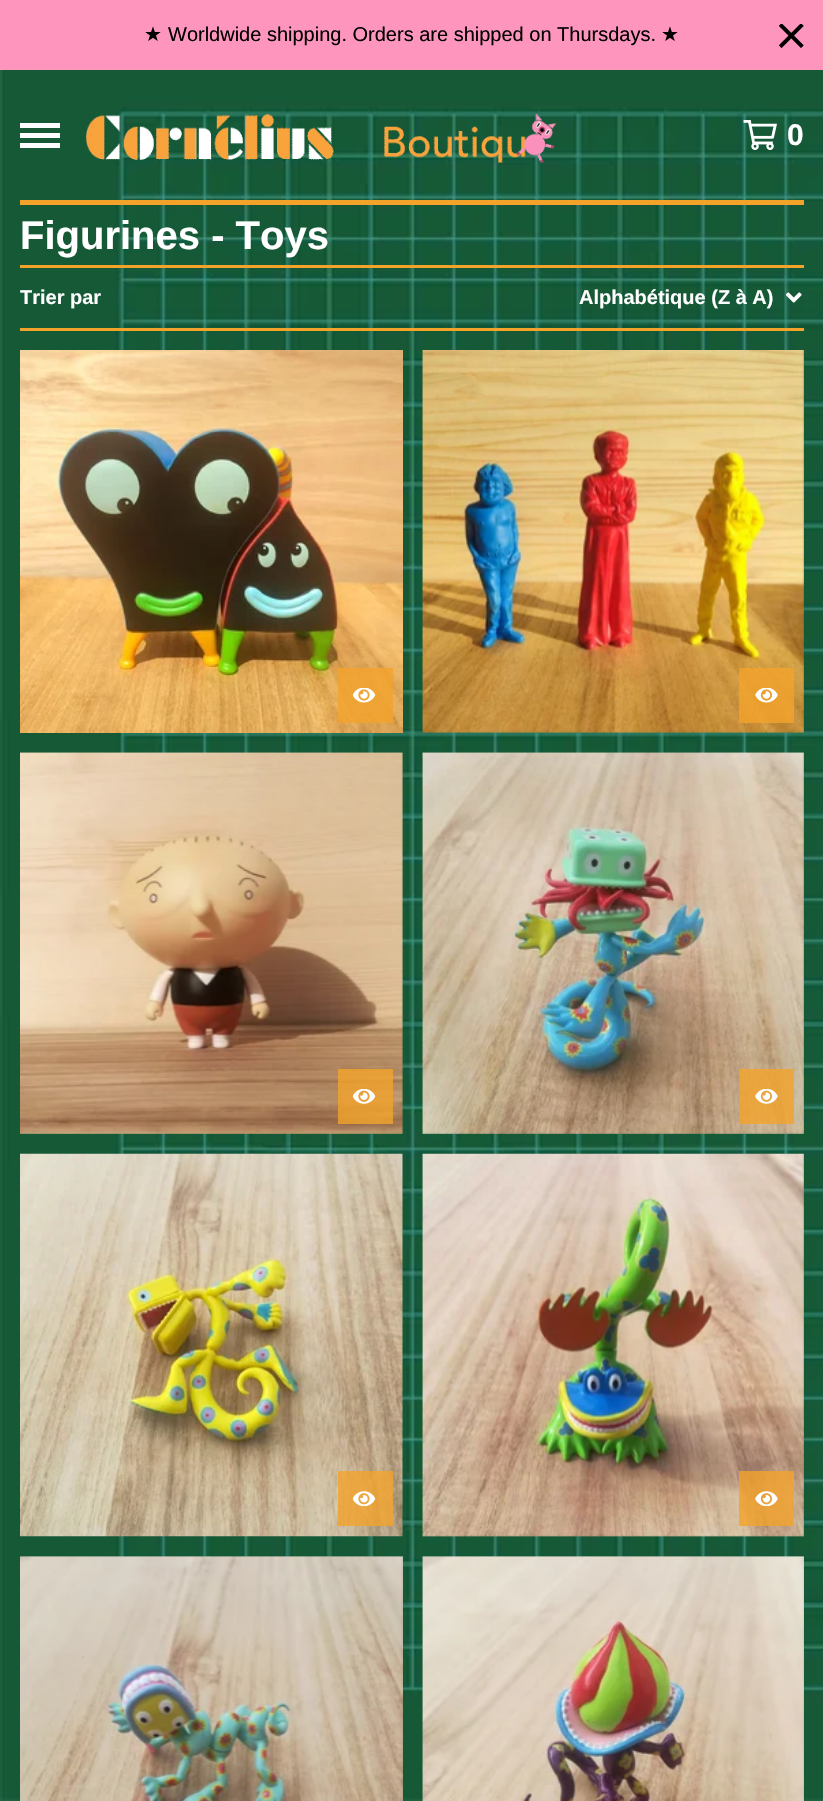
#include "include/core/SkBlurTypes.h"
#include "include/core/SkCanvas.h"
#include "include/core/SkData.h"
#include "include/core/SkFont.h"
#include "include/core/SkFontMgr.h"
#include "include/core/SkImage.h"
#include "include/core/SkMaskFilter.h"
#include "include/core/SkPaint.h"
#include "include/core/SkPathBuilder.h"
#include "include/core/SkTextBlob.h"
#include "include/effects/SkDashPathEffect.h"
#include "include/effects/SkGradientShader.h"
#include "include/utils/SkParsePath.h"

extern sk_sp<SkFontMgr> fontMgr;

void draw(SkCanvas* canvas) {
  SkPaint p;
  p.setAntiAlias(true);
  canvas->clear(SK_ColorWHITE);
  canvas->drawImageRect(SkImages::DeferredFromEncodedData(SkData::MakeFromFileName("images/1.png")), SkRect::MakeLTRB(0, 70, 823, 1801), SkSamplingOptions());
  p.setColor(SkColorSetRGB(254, 149, 189));
  canvas->drawRect(SkRect::MakeLTRB(0, 0, 823, 70), p);
  canvas->drawImageRect(SkImages::DeferredFromEncodedData(SkData::MakeFromFileName("images/2.png")), SkRect::MakeLTRB(779, 24, 804, 48), SkSamplingOptions());
  p.setColor(SkColorSetRGB(243, 163, 42));
  canvas->drawRect(SkRect::MakeLTRB(20, 200, 804, 205), p);
  p.setColor(SK_ColorWHITE);
  canvas->drawRect(SkRect::MakeLTRB(20, 133, 60, 138), p);
  canvas->drawRect(SkRect::MakeLTRB(20, 123, 60, 128), p);
  canvas->drawRect(SkRect::MakeLTRB(20, 143, 60, 148), p);
  canvas->drawImageRect(SkImages::DeferredFromEncodedData(SkData::MakeFromFileName("images/3.png")), SkRect::MakeLTRB(86, 113, 557, 163), SkSamplingOptions());
  canvas->drawImageRect(SkImages::DeferredFromEncodedData(SkData::MakeFromFileName("images/4.png")), SkRect::MakeLTRB(743, 120, 777, 150), SkSamplingOptions());
  p.setColor(SkColorSetRGB(243, 163, 42));
  canvas->drawRect(SkRect::MakeLTRB(20, 328, 804, 331), p);
  canvas->drawRect(SkRect::MakeLTRB(20, 265, 804, 268), p);
  canvas->drawImageRect(SkImages::DeferredFromEncodedData(SkData::MakeFromFileName("images/5.png")), SkRect::MakeLTRB(785, 292, 802, 303), SkSamplingOptions());
  canvas->drawImageRect(SkImages::DeferredFromEncodedData(SkData::MakeFromFileName("images/6.png")), SkRect::MakeLTRB(20, 350, 403, 733), SkSamplingOptions());
  p.setColor(SkColorSetARGB(204, 243, 163, 42));
  canvas->drawRect(SkRect::MakeLTRB(338, 668, 393, 723), p);
  canvas->drawImageRect(SkImages::DeferredFromEncodedData(SkData::MakeFromFileName("images/7.png")), SkRect::MakeLTRB(353, 688, 376, 703), SkSamplingOptions());
  canvas->drawImageRect(SkImages::DeferredFromEncodedData(SkData::MakeFromFileName("images/8.png")), SkRect::MakeLTRB(422, 350, 804, 733), SkSamplingOptions());
  canvas->drawRect(SkRect::MakeLTRB(739, 668, 794, 723), p);
  canvas->drawImageRect(SkImages::DeferredFromEncodedData(SkData::MakeFromFileName("images/9.png")), SkRect::MakeLTRB(755, 688, 778, 703), SkSamplingOptions());
  canvas->drawImageRect(SkImages::DeferredFromEncodedData(SkData::MakeFromFileName("images/10.png")), SkRect::MakeLTRB(20, 752, 403, 1134), SkSamplingOptions());
  canvas->drawRect(SkRect::MakeLTRB(338, 1069, 393, 1124), p);
  canvas->drawImageRect(SkImages::DeferredFromEncodedData(SkData::MakeFromFileName("images/11.png")), SkRect::MakeLTRB(353, 1089, 376, 1104), SkSamplingOptions());
  canvas->drawImageRect(SkImages::DeferredFromEncodedData(SkData::MakeFromFileName("images/12.png")), SkRect::MakeLTRB(422, 752, 804, 1134), SkSamplingOptions());
  canvas->drawRect(SkRect::MakeLTRB(739, 1069, 794, 1124), p);
  canvas->drawImageRect(SkImages::DeferredFromEncodedData(SkData::MakeFromFileName("images/13.png")), SkRect::MakeLTRB(755, 1089, 778, 1104), SkSamplingOptions());
  canvas->drawImageRect(SkImages::DeferredFromEncodedData(SkData::MakeFromFileName("images/14.png")), SkRect::MakeLTRB(20, 1153, 403, 1537), SkSamplingOptions());
  canvas->drawRect(SkRect::MakeLTRB(338, 1471, 393, 1526), p);
  canvas->drawImageRect(SkImages::DeferredFromEncodedData(SkData::MakeFromFileName("images/15.png")), SkRect::MakeLTRB(353, 1491, 376, 1506), SkSamplingOptions());
  canvas->drawImageRect(SkImages::DeferredFromEncodedData(SkData::MakeFromFileName("images/16.png")), SkRect::MakeLTRB(422, 1153, 804, 1537), SkSamplingOptions());
  canvas->drawRect(SkRect::MakeLTRB(739, 1471, 794, 1526), p);
  canvas->drawImageRect(SkImages::DeferredFromEncodedData(SkData::MakeFromFileName("images/17.png")), SkRect::MakeLTRB(755, 1491, 778, 1506), SkSamplingOptions());
  canvas->drawImageRect(SkImages::DeferredFromEncodedData(SkData::MakeFromFileName("images/18.png")), SkRect::MakeLTRB(20, 1556, 403, 1801), SkSamplingOptions());
  canvas->drawImageRect(SkImages::DeferredFromEncodedData(SkData::MakeFromFileName("images/19.png")), SkRect::MakeLTRB(422, 1556, 804, 1801), SkSamplingOptions());
  SkFont font1(fontMgr->matchFamilyStyle("DejaVu Sans", SkFontStyle::Normal()), 20);
  font1.setSubpixel(true);
  p.setColor(SK_ColorBLACK);
  canvas->drawString("★", 144, 41, font1, p);
  SkFont font2(fontMgr->matchFamilyStyle("Liberation Sans", SkFontStyle::Normal()), 20);
  font2.setSubpixel(true);
  canvas->drawString("Worldwide shipping. Orders are shipped on Thursdays.", 168, 41, font2, p);
  canvas->drawString("★", 661, 41, font1, p);
  SkFont font3(fontMgr->matchFamilyStyle("Liberation Sans", SkFontStyle::Bold()), 30);
  font3.setSubpixel(true);
  p.setColor(SK_ColorWHITE);
  canvas->drawString("0", 787, 145, font3, p);
  SkFont font4(fontMgr->matchFamilyStyle("Liberation Sans", SkFontStyle::Bold()), 40);
  font4.setSubpixel(true);
  canvas->drawString("Figurines - Toys", 20, 249, font4, p);
  SkFont font5(fontMgr->matchFamilyStyle("Liberation Sans", SkFontStyle::Bold()), 20);
  font5.setSubpixel(true);
  canvas->drawString("Trier par", 20, 304, font5, p);
  canvas->drawString("Alphabétique (Z à A)", 579, 304, font5, p);
}
